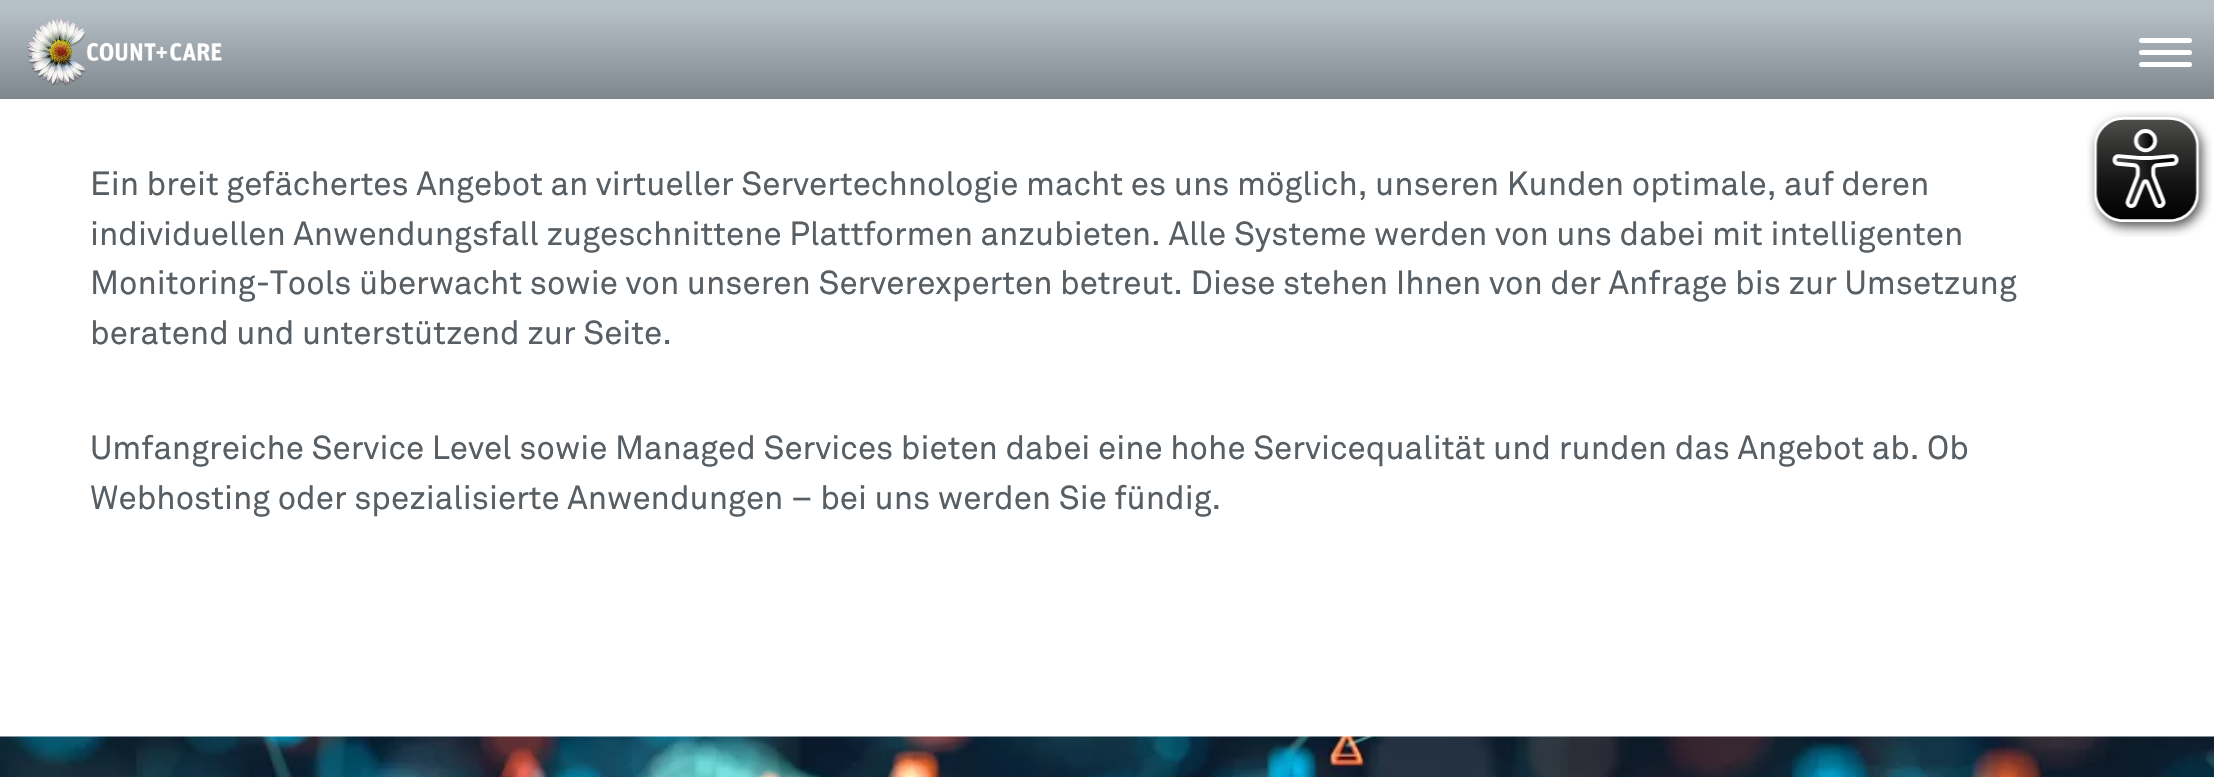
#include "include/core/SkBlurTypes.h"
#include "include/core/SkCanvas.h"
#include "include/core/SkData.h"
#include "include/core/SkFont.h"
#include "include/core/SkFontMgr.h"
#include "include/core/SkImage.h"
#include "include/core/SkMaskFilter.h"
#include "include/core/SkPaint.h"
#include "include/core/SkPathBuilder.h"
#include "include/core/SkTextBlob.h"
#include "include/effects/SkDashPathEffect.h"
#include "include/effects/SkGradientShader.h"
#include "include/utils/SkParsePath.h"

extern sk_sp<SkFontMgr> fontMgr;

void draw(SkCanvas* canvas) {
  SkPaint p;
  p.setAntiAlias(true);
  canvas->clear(SK_ColorWHITE);
  {
    const SkColor colors[] = {SkColorSetRGB(181, 192, 198), SkColorSetRGB(181, 192, 198), SkColorSetRGB(127, 135, 141)};
    const float stops[] = {0, 0.1f, 1};
    const SkPoint ends[] = {{1107, 0}, {1107, 99}};
    p.setShader(SkGradientShader::MakeLinear(ends, colors, stops, 3, SkTileMode::kClamp));
    p.setAlpha(255);
  }
  canvas->drawRect(SkRect::MakeLTRB(0, 0, 2214, 99), p);
  canvas->drawImageRect(SkImages::DeferredFromEncodedData(SkData::MakeFromFileName("images/1.png")), SkRect::MakeLTRB(27, 18, 222, 86), SkSamplingOptions());
  p.setShader(nullptr);
  p.setColor(SK_ColorWHITE);
  canvas->drawRoundRect(SkRect::MakeLTRB(2139, 38, 2192, 43), 2.5f, 2.5f, p);
  canvas->drawRoundRect(SkRect::MakeLTRB(2139, 50, 2192, 55), 2.5f, 2.5f, p);
  canvas->drawRoundRect(SkRect::MakeLTRB(2139, 62, 2192, 67), 2.5f, 2.5f, p);
  canvas->drawImageRect(SkImages::DeferredFromEncodedData(SkData::MakeFromFileName("images/2.png")), SkRect::MakeLTRB(0, 736, 2214, 777), SkSamplingOptions());
  canvas->drawImageRect(SkImages::DeferredFromEncodedData(SkData::MakeFromFileName("images/3.png")), SkRect::MakeLTRB(2087, 111, 2212, 237), SkSamplingOptions());
  SkFont font1(fontMgr->matchFamilyStyle("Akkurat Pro", SkFontStyle::Normal()), 33);
  font1.setSubpixel(true);
  p.setColor(SkColorSetRGB(87, 94, 100));
  canvas->drawString("Ein breit gefächertes Angebot an virtueller Servertechnologie macht es uns möglich, unseren Kunden optimale, auf deren", 90, 195, font1, p);
  canvas->drawString("individuellen Anwendungsfall zugeschnittene Plattformen anzubieten. Alle Systeme werden von uns dabei mit intelligenten", 90, 245, font1, p);
  canvas->drawString("Monitoring-Tools überwacht sowie von unseren Serverexperten betreut. Diese stehen Ihnen von der Anfrage bis zur Umsetzung", 90, 294, font1, p);
  canvas->drawString("beratend und unterstützend zur Seite.", 90, 344, font1, p);
  canvas->drawString("Umfangreiche Service Level sowie Managed Services bieten dabei eine hohe Servicequalität und runden das Angebot ab. Ob", 90, 459, font1, p);
  canvas->drawString("Webhosting oder spezialisierte Anwendungen – bei uns werden Sie fündig.", 90, 509, font1, p);
}
